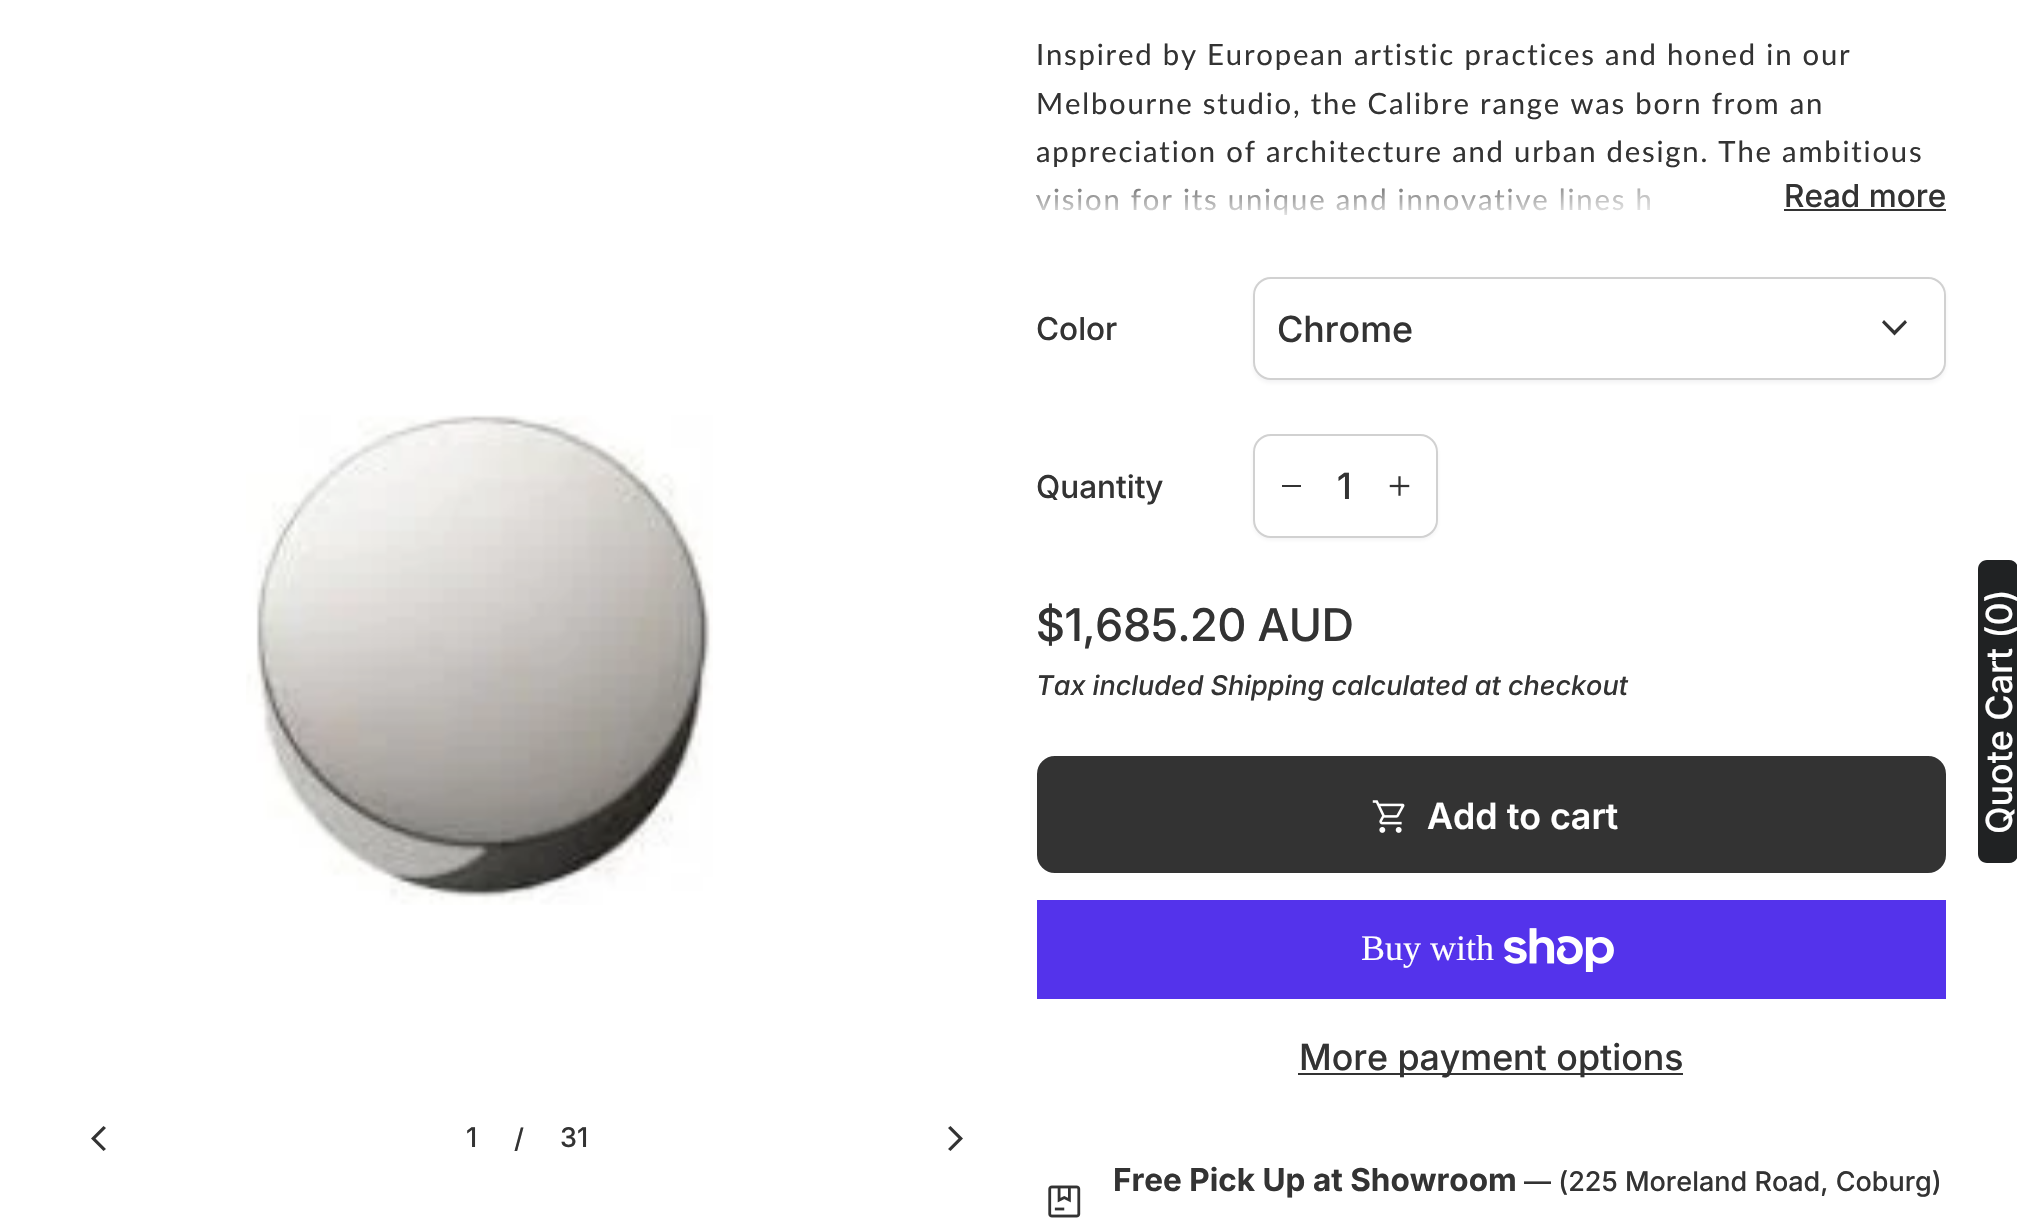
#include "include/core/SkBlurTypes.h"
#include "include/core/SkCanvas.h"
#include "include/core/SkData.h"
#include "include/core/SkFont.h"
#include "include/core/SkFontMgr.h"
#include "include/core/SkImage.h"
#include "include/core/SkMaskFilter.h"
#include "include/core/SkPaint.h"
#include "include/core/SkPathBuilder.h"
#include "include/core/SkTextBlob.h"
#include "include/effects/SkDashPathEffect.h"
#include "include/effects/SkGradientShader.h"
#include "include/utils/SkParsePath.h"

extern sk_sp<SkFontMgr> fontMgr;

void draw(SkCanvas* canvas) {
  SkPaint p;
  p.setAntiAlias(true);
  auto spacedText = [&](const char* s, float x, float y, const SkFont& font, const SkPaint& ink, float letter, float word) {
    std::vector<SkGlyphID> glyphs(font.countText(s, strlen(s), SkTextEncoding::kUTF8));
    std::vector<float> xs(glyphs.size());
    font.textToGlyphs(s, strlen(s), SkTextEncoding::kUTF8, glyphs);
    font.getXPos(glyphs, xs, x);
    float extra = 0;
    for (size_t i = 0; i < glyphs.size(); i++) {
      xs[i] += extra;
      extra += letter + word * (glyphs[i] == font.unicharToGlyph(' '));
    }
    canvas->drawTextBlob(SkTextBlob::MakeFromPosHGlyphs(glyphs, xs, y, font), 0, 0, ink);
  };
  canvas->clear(SK_ColorWHITE);
  canvas->drawImageRect(SkImages::DeferredFromEncodedData(SkData::MakeFromFileName("images/1.png")), SkRect::MakeLTRB(246, 415, 713, 905), SkSamplingOptions());
  p.setColor(SkColorSetRGB(51, 51, 51));
  canvas->drawPath(SkPathBuilder().moveTo(103.5f, 1151).lineTo(91, 1138.5f).lineTo(103.5f, 1126).lineTo(106, 1128).lineTo(95.5f, 1138.5f).lineTo(106, 1149).close().detach(), p);
  canvas->drawPath(SkPathBuilder().moveTo(958.5f, 1138.5f).lineTo(948, 1128).lineTo(950.5f, 1126).lineTo(963, 1138.5f).lineTo(950.5f, 1151).lineTo(948, 1149).close().detach(), p);
  canvas->drawRect(SkRect::MakeLTRB(1784, 209, 1946, 211), p);
  p.setColor(SkColorSetARGB(13, 16, 24, 40));
  p.setMaskFilter(SkMaskFilter::MakeBlur(kNormal_SkBlurStyle, 2));
  canvas->drawRoundRect(SkRect::MakeLTRB(1253, 279, 1946, 383), 18, 18, p);
  p.setMaskFilter(nullptr);
  p.setColor(SK_ColorWHITE);
  canvas->drawRoundRect(SkRect::MakeLTRB(1254, 278, 1945, 379), 17, 17, p);
  p.setStyle(SkPaint::kStroke_Style);
  p.setStrokeWidth(2);
  p.setColor(SkColorSetRGB(209, 209, 209));
  canvas->drawRoundRect(SkRect::MakeLTRB(1254, 278, 1945, 379), 17, 17, p);
  p.setStyle(SkPaint::kFill_Style);
  p.setColor(SK_ColorWHITE);
  canvas->drawRoundRect(SkRect::MakeLTRB(1256, 279, 1944, 378), 18, 18, p);
  p.setColor(SkColorSetRGB(51, 51, 51));
  canvas->drawPath(SkPathBuilder().moveTo(1894.5f, 335.5f).lineTo(1882, 322.5f).lineTo(1884, 320).lineTo(1894.5f, 330.5f).lineTo(1905, 320).lineTo(1907, 322.5f).close().detach(), p);
  p.setColor(SkColorSetARGB(13, 16, 24, 40));
  p.setMaskFilter(SkMaskFilter::MakeBlur(kNormal_SkBlurStyle, 2));
  canvas->drawRoundRect(SkRect::MakeLTRB(1253, 437, 1438, 540), 18, 18, p);
  p.setMaskFilter(nullptr);
  p.setColor(SK_ColorWHITE);
  canvas->drawRoundRect(SkRect::MakeLTRB(1254, 435, 1437, 537), 17, 17, p);
  p.setStyle(SkPaint::kStroke_Style);
  p.setColor(SkColorSetRGB(209, 209, 209));
  canvas->drawRoundRect(SkRect::MakeLTRB(1254, 435, 1437, 537), 17, 17, p);
  p.setStyle(SkPaint::kFill_Style);
  p.setColor(SK_ColorWHITE);
  canvas->drawRoundRect(SkRect::MakeLTRB(1256, 437, 1436, 536), 18, 18, p);
  p.setColor(SkColorSetRGB(51, 51, 51));
  canvas->drawRect(SkRect::MakeLTRB(1282, 485, 1301, 487), p);
  canvas->drawImageRect(SkImages::DeferredFromEncodedData(SkData::MakeFromFileName("images/2.png")), SkRect::MakeLTRB(1389, 476, 1410, 496), SkSamplingOptions());
  canvas->drawRoundRect(SkRect::MakeLTRB(1038, 757, 1945, 872), 17, 17, p);
  p.setStyle(SkPaint::kStroke_Style);
  canvas->drawRoundRect(SkRect::MakeLTRB(1038, 757, 1945, 872), 17, 17, p);
  canvas->drawImageRect(SkImages::DeferredFromEncodedData(SkData::MakeFromFileName("images/3.png")), SkRect::MakeLTRB(1372, 800, 1405, 833), SkSamplingOptions());
  p.setStyle(SkPaint::kFill_Style);
  p.setColor(SkColorSetRGB(84, 51, 235));
  canvas->drawRect(SkRect::MakeLTRB(1037, 900, 1946, 999), p);
  canvas->drawImageRect(SkImages::DeferredFromEncodedData(SkData::MakeFromFileName("images/4.png")), SkRect::MakeLTRB(1504, 928, 1614, 972), SkSamplingOptions());
  p.setColor(SkColorSetRGB(51, 51, 51));
  canvas->drawRect(SkRect::MakeLTRB(1298, 1073, 1683, 1075), p);
  canvas->drawImageRect(SkImages::DeferredFromEncodedData(SkData::MakeFromFileName("images/5.png")), SkRect::MakeLTRB(1048, 1185, 1081, 1218), SkSamplingOptions());
  p.setColor(SkColorSetRGB(32, 34, 35));
  canvas->drawPath(SkPathBuilder().moveTo(1978, 854).lineTo(1978, 569).cubicTo(1978, 564, 1982, 560, 1987, 560).lineTo(2009, 560).cubicTo(2014, 560, 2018, 564, 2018, 569).lineTo(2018, 854).cubicTo(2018, 859, 2014, 863, 2009, 863).lineTo(1987, 863).cubicTo(1982, 863, 1978, 859, 1978, 854).close().detach(), p);
  SkFont font1(fontMgr->matchFamilyStyle("Inter", SkFontStyle(500, SkFontStyle::kNormal_Width, SkFontStyle::kUpright_Slant)), 27);
  font1.setSubpixel(true);
  p.setColor(SkColorSetRGB(51, 51, 51));
  canvas->drawString("1", 466, 1147, font1, p);
  canvas->drawString("/", 514, 1148, font1, p);
  canvas->drawString("31", 560, 1147, font1, p);
  SkFont font2(fontMgr->matchFamilyStyle("Lato", SkFontStyle::Normal()), 29.25f);
  font2.setSubpixel(true);
  spacedText("Inspired by European artistic practices and honed in our", 1036, 65, font2, p, 1.8f, 0);
  spacedText("Melbourne studio, the Calibre range was born from an", 1036, 114, font2, p, 1.8f, 0);
  spacedText("appreciation of architecture and urban design. The ambitious", 1036, 162, font2, p, 1.8f, 0);
  spacedText("vision for its unique and innovative lines h", 1036, 210, font2, p, 1.8f, 0);
  {
    const SkColor colors[] = {SK_ColorWHITE, SkColorSetARGB(0, 255, 255, 255)};
    const float stops[] = {0.1f, 0.5f};
    const SkPoint ends[] = {{1946, 198}, {1037, 198}};
    p.setShader(SkGradientShader::MakeLinear(ends, colors, stops, 2, SkTileMode::kClamp));
    p.setAlpha(255);
  }
  canvas->drawRect(SkRect::MakeLTRB(1499, 188, 1651, 211), p);
  {
    const SkColor colors[] = {SK_ColorWHITE, SkColorSetARGB(0, 255, 255, 255)};
    const float stops[] = {0, 1};
    const SkPoint ends[] = {{1492, 223}, {1492, 169}};
    p.setShader(SkGradientShader::MakeLinear(ends, colors, stops, 2, SkTileMode::kClamp));
    p.setAlpha(255);
  }
  canvas->drawRect(SkRect::MakeLTRB(1037, 188, 1651, 215), p);
  SkFont font3(fontMgr->matchFamilyStyle("Inter", SkFontStyle(500, SkFontStyle::kNormal_Width, SkFontStyle::kUpright_Slant)), 31.5f);
  font3.setSubpixel(true);
  p.setShader(nullptr);
  p.setColor(SkColorSetRGB(51, 51, 51));
  canvas->drawString("Read more", 1784, 207, font3, p);
  canvas->drawString("Color", 1036, 340, font3, p);
  SkFont font4(fontMgr->matchFamilyStyle("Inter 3", SkFontStyle(500, SkFontStyle::kNormal_Width, SkFontStyle::kUpright_Slant)), 36);
  font4.setSubpixel(true);
  canvas->drawString("Chrome", 1277, 342, font4, p);
  canvas->drawString("Quantity", 1036, 498, font3, p);
  canvas->drawString("1", 1337, 499, font4, p);
  SkFont font5(fontMgr->matchFamilyStyle("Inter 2", SkFontStyle(500, SkFontStyle::kNormal_Width, SkFontStyle::kUpright_Slant)), 45);
  font5.setSubpixel(true);
  canvas->drawString("$1,685.20 AUD", 1036, 641, font5, p);
  SkFont font6(fontMgr->matchFamilyStyle("Inter", SkFontStyle(500, SkFontStyle::kNormal_Width, SkFontStyle::kItalic_Slant)), 27);
  font6.setSubpixel(true);
  canvas->drawString("Tax included Shipping calculated at checkout", 1036, 695, font6, p);
  SkFont font7(fontMgr->matchFamilyStyle("Inter", SkFontStyle(600, SkFontStyle::kNormal_Width, SkFontStyle::kUpright_Slant)), 36);
  font7.setSubpixel(true);
  p.setColor(SK_ColorWHITE);
  canvas->drawString("Add to cart", 1427, 829, font7, p);
  SkFont font8(fontMgr->matchFamilyStyle("Liberation Serif", SkFontStyle::Normal()), 36);
  font8.setSubpixel(true);
  canvas->drawString("Buy with", 1361, 960, font8, p);
  p.setColor(SkColorSetRGB(51, 51, 51));
  canvas->drawString("More payment options", 1299, 1070, font4, p);
  SkFont font9(fontMgr->matchFamilyStyle("Inter", SkFontStyle::Bold()), 31.5f);
  font9.setSubpixel(true);
  canvas->drawString("Free Pick Up at Showroom", 1113, 1191, font9, p);
  canvas->drawString("— (225 Moreland Road, Coburg)", 1524, 1191, font1, p);
  p.setColor(SK_ColorWHITE);
  canvas->save();
  canvas->rotate(-90, 2012, 834);
  canvas->drawString("Quote Cart (0)", 2012, 834, font4, p);
  canvas->restore();
}
